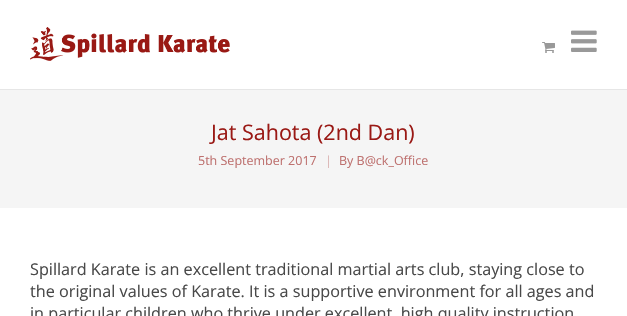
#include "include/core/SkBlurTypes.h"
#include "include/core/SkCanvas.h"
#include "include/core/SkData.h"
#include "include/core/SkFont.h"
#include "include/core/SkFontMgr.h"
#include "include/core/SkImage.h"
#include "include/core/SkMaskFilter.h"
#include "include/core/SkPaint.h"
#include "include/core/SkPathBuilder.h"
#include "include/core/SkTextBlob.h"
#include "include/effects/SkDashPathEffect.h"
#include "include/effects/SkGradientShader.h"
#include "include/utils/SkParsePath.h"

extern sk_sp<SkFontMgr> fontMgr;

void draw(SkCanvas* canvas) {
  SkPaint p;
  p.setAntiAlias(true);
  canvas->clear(SK_ColorWHITE);
  p.setColor(SkColorSetRGB(230, 230, 230));
  canvas->drawRect(SkRect::MakeLTRB(0, 89, 627, 90), p);
  canvas->drawImageRect(SkImages::DeferredFromEncodedData(SkData::MakeFromFileName("images/1.png")), SkRect::MakeLTRB(30, 27, 230, 61), SkSamplingOptions());
  canvas->drawImageRect(SkImages::DeferredFromEncodedData(SkData::MakeFromFileName("images/2.png")), SkRect::MakeLTRB(542, 42, 555, 53), SkSamplingOptions());
  canvas->drawImageRect(SkImages::DeferredFromEncodedData(SkData::MakeFromFileName("images/3.png")), SkRect::MakeLTRB(571, 30, 597, 52), SkSamplingOptions());
  p.setColor(SkColorSetRGB(245, 245, 245));
  canvas->drawRect(SkRect::MakeLTRB(0, 90, 627, 208), p);
  SkFont font1(fontMgr->matchFamilyStyle("Open Sans", SkFontStyle::Normal()), 21.5f);
  font1.setSubpixel(true);
  p.setColor(SkColorSetRGB(154, 25, 21));
  canvas->drawString("Jat Sahota (2nd Dan)", 211, 140, font1, p);
  SkFont font2(fontMgr->matchFamilyStyle("Open Sans", SkFontStyle::Normal()), 12.5f);
  font2.setSubpixel(true);
  p.setColor(SkColorSetRGB(190, 113, 111));
  canvas->drawString("5th September 2017", 198, 165, font2, p);
  p.setColor(SkColorSetRGB(218, 179, 178));
  canvas->drawString("|", 325, 165, font2, p);
  p.setColor(SkColorSetRGB(190, 113, 111));
  canvas->drawString("By B@ck_Office", 339, 165, font2, p);
  SkFont font3(fontMgr->matchFamilyStyle("Open Sans", SkFontStyle::Normal()), 16.2f);
  font3.setSubpixel(true);
  p.setColor(SkColorSetRGB(73, 73, 73));
  canvas->drawString("Spillard Karate is an excellent traditional martial arts club, staying close to", 30, 275, font3, p);
  canvas->drawString("the original values of Karate. It is a supportive environment for all ages and", 30, 297, font3, p);
  canvas->drawString("in particular children who thrive under excellent, high quality instruction", 30, 319, font3, p);
}
